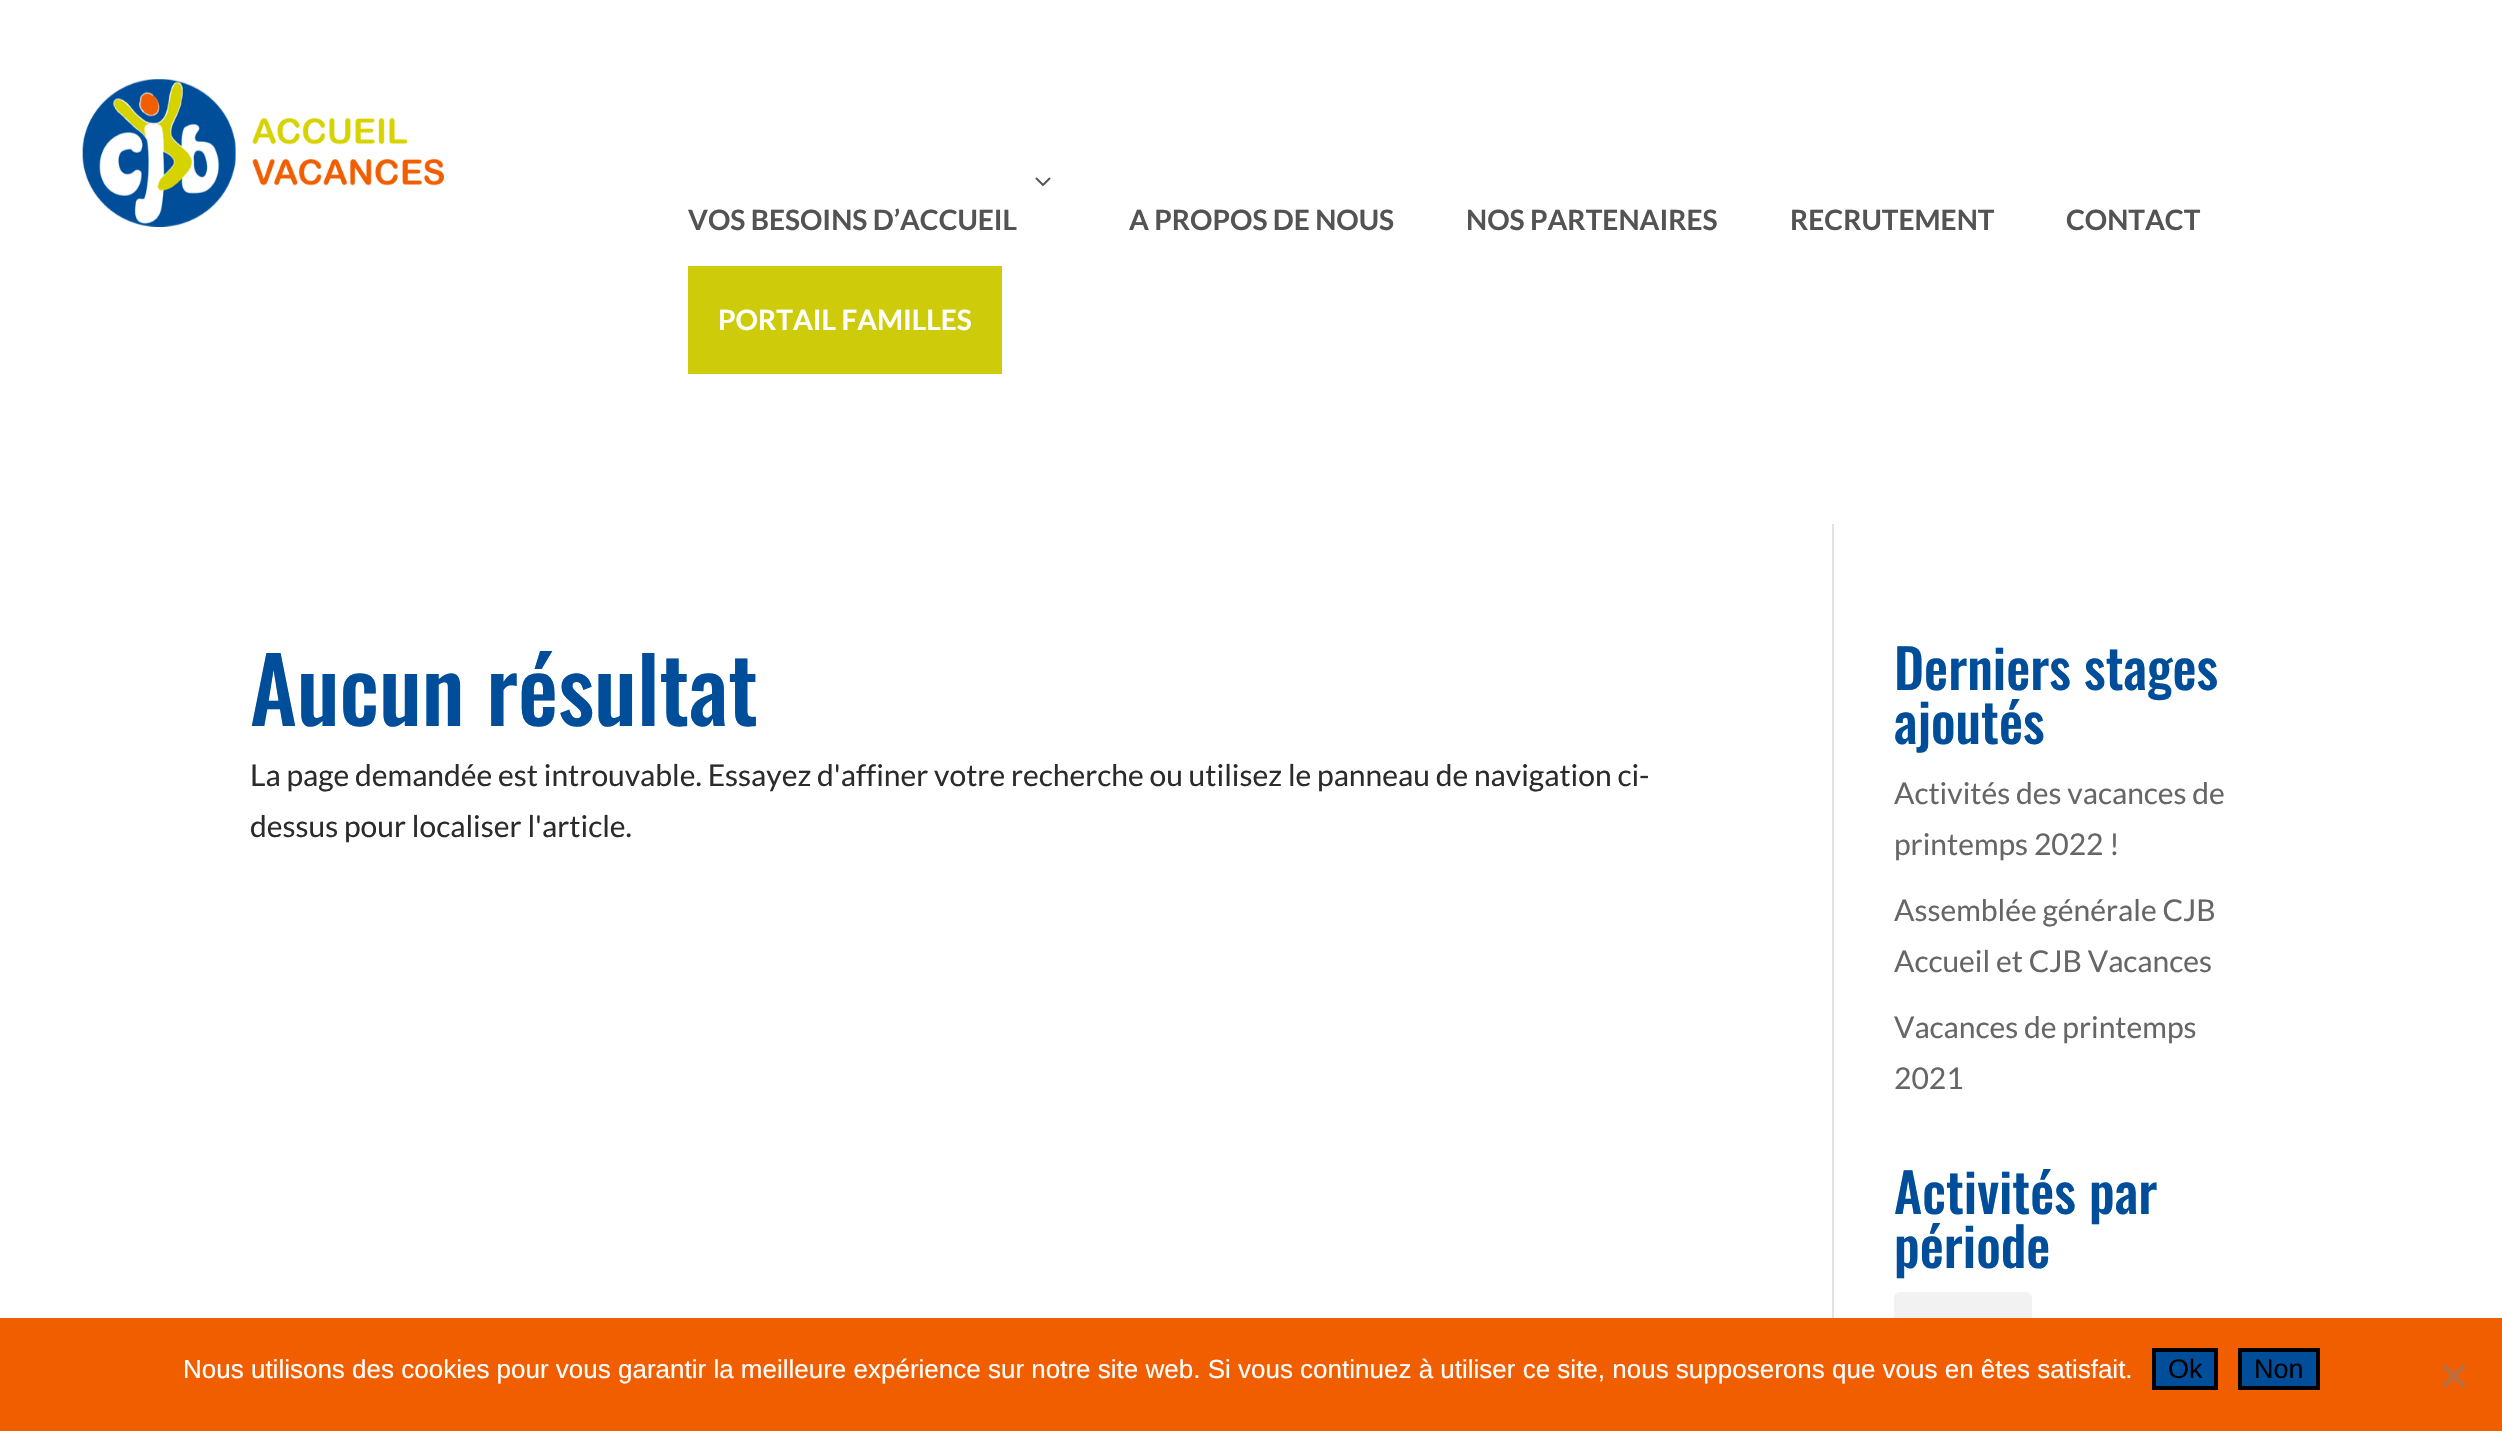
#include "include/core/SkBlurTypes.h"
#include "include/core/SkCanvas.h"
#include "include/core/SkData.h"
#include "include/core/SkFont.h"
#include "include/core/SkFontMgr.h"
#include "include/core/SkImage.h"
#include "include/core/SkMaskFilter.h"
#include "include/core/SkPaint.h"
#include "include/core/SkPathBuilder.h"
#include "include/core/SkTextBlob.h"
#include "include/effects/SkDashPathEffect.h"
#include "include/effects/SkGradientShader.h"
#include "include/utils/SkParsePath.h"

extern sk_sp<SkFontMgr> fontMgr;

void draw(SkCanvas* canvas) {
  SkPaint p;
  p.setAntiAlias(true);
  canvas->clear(SK_ColorWHITE);
  canvas->drawImageRect(SkImages::DeferredFromEncodedData(SkData::MakeFromFileName("images/1.png")), SkRect::MakeLTRB(82, 79, 444, 227), SkSamplingOptions());
  canvas->drawImageRect(SkImages::DeferredFromEncodedData(SkData::MakeFromFileName("images/2.png")), SkRect::MakeLTRB(1035, 177, 1051, 186), SkSamplingOptions());
  p.setColor(SkColorSetRGB(206, 204, 10));
  canvas->drawRect(SkRect::MakeLTRB(688, 266, 1002, 374), p);
  p.setColor(SkColorSetRGB(226, 226, 226));
  canvas->drawRect(SkRect::MakeLTRB(1832, 524, 1834, 1318), p);
  p.setColor(SkColorSetRGB(242, 242, 242));
  canvas->drawRoundRect(SkRect::MakeLTRB(1894, 1292, 2032, 1352), 6, 6, p);
  p.setColor(SkColorSetRGB(241, 94, 0));
  canvas->drawRect(SkRect::MakeLTRB(0, 1318, 2502, 1431), p);
  p.setColor(SkColorSetRGB(0, 78, 154));
  canvas->drawRect(SkRect::MakeLTRB(2154, 1350, 2216, 1388), p);
  p.setStyle(SkPaint::kStroke_Style);
  p.setStrokeWidth(4);
  p.setColor(SK_ColorBLACK);
  canvas->drawRect(SkRect::MakeLTRB(2154, 1350, 2216, 1388), p);
  p.setStyle(SkPaint::kFill_Style);
  p.setColor(SkColorSetRGB(0, 78, 154));
  canvas->drawRect(SkRect::MakeLTRB(2240, 1350, 2318, 1388), p);
  p.setStyle(SkPaint::kStroke_Style);
  p.setColor(SK_ColorBLACK);
  canvas->drawRect(SkRect::MakeLTRB(2240, 1350, 2318, 1388), p);
  p.setStyle(SkPaint::kFill_Style);
  p.setColor(SkColorSetRGB(185, 111, 64));
  canvas->drawPath(SkPathBuilder().moveTo(2463, 1364).lineTo(2466, 1367).lineTo(2445, 1388).lineTo(2442, 1385).close().detach(), p);
  canvas->drawPath(SkPathBuilder().moveTo(2442, 1367).lineTo(2445, 1364).lineTo(2466, 1385).lineTo(2463, 1388).close().detach(), p);
  SkFont font1(fontMgr->matchFamilyStyle("Lato", SkFontStyle::Bold()), 28);
  font1.setSubpixel(true);
  p.setColor(SkColorSetRGB(83, 83, 83));
  canvas->drawString("VOS BESOINS D’ACCUEIL", 688, 230, font1, p);
  canvas->drawString("A PROPOS DE NOUS", 1129, 230, font1, p);
  canvas->drawString("NOS PARTENAIRES", 1466, 230, font1, p);
  canvas->drawString("RECRUTEMENT", 1790, 230, font1, p);
  canvas->drawString("CONTACT", 2066, 230, font1, p);
  p.setColor(SK_ColorWHITE);
  canvas->drawString("PORTAIL FAMILLES", 718, 330, font1, p);
  SkFont font2(fontMgr->matchFamilyStyle("Oswald", SkFontStyle(500, SkFontStyle::kNormal_Width, SkFontStyle::kUpright_Slant)), 90);
  font2.setSubpixel(true);
  p.setColor(SkColorSetRGB(0, 78, 154));
  canvas->drawString("Aucun résultat", 250, 726, font2, p);
  SkFont font3(fontMgr->matchFamilyStyle("Lato", SkFontStyle::Normal()), 30);
  font3.setSubpixel(true);
  p.setColor(SkColorSetRGB(43, 43, 43));
  canvas->drawString("La page demandée est introuvable. Essayez d'affiner votre recherche ou utilisez le panneau de navigation ci-", 250, 786, font3, p);
  canvas->drawString("dessus pour localiser l'article.", 250, 837, font3, p);
  SkFont font4(fontMgr->matchFamilyStyle("Oswald", SkFontStyle(500, SkFontStyle::kNormal_Width, SkFontStyle::kUpright_Slant)), 54);
  font4.setSubpixel(true);
  p.setColor(SkColorSetRGB(0, 78, 154));
  canvas->drawString("Derniers stages", 1894, 690, font4, p);
  canvas->drawString("ajoutés", 1894, 744, font4, p);
  p.setColor(SkColorSetRGB(102, 102, 102));
  canvas->drawString("Activités des vacances de", 1894, 804, font3, p);
  canvas->drawString("printemps 2022 !", 1894, 855, font3, p);
  canvas->drawString("Assemblée générale CJB", 1894, 921, font3, p);
  canvas->drawString("Accueil et CJB Vacances", 1894, 972, font3, p);
  canvas->drawString("Vacances de printemps", 1894, 1038, font3, p);
  canvas->drawString("2021", 1894, 1089, font3, p);
  p.setColor(SkColorSetRGB(0, 78, 154));
  canvas->drawString("Activités par", 1894, 1214, font4, p);
  canvas->drawString("période", 1894, 1268, font4, p);
  SkFont font5(fontMgr->matchFamilyStyle("Liberation Sans", SkFontStyle::Normal()), 26);
  font5.setSubpixel(true);
  p.setColor(SK_ColorWHITE);
  canvas->drawString("Nous utilisons des cookies pour vous garantir la meilleure expérience sur notre site web. Si vous continuez à utiliser ce site, nous supposerons que vous en êtes satisfait.", 183, 1378, font5, p);
  SkFont font6(fontMgr->matchFamilyStyle("Liberation Sans", SkFontStyle::Normal()), 27);
  font6.setSubpixel(true);
  p.setColor(SK_ColorBLACK);
  canvas->drawString("Ok", 2168, 1378, font6, p);
  canvas->drawString("Non", 2254, 1378, font6, p);
}
